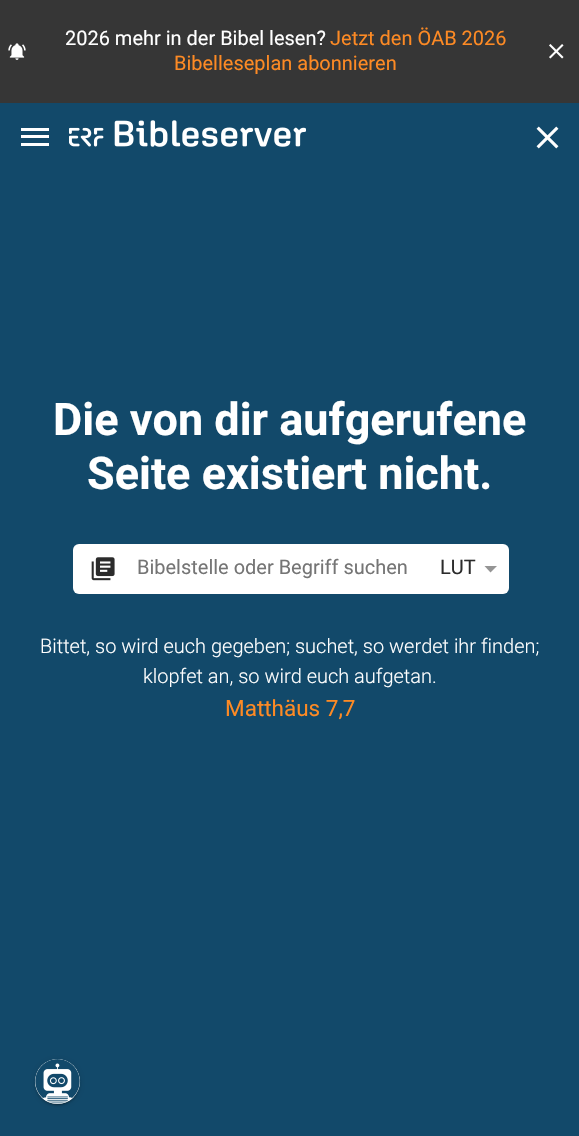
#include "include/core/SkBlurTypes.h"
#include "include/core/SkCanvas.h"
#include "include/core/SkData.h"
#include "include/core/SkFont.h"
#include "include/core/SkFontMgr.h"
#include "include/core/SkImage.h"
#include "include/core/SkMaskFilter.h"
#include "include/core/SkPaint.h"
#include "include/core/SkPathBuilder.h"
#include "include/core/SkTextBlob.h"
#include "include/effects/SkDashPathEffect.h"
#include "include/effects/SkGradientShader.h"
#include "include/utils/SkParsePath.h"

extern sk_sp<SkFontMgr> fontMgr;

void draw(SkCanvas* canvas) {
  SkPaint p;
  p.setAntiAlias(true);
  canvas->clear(SkColorSetRGB(18, 73, 106));
  p.setColor(SkColorSetRGB(54, 54, 54));
  canvas->drawRect(SkRect::MakeLTRB(0, 0, 579, 103), p);
  canvas->drawImageRect(SkImages::DeferredFromEncodedData(SkData::MakeFromFileName("images/1.png")), SkRect::MakeLTRB(8, 43, 26, 60), SkSamplingOptions());
  canvas->drawImageRect(SkImages::DeferredFromEncodedData(SkData::MakeFromFileName("images/2.png")), SkRect::MakeLTRB(549, 44, 564, 59), SkSamplingOptions());
  p.setColor(SK_ColorWHITE);
  canvas->drawRect(SkRect::MakeLTRB(21, 128, 49, 131), p);
  canvas->drawRect(SkRect::MakeLTRB(21, 135, 49, 138), p);
  canvas->drawRect(SkRect::MakeLTRB(21, 143, 49, 146), p);
  canvas->drawImageRect(SkImages::DeferredFromEncodedData(SkData::MakeFromFileName("images/3.png")), SkRect::MakeLTRB(69, 120, 306, 147), SkSamplingOptions());
  canvas->drawImageRect(SkImages::DeferredFromEncodedData(SkData::MakeFromFileName("images/4.png")), SkRect::MakeLTRB(536, 126, 559, 149), SkSamplingOptions());
  canvas->drawRoundRect(SkRect::MakeLTRB(73, 544, 509, 594), 6, 6, p);
  canvas->drawImageRect(SkImages::DeferredFromEncodedData(SkData::MakeFromFileName("images/5.png")), SkRect::MakeLTRB(91, 557, 115, 581), SkSamplingOptions());
  p.setColor(SkColorSetRGB(149, 149, 149));
  canvas->drawPath(SkPathBuilder().moveTo(484.5f, 566).lineTo(490.5f, 572.5f).lineTo(497, 566).close().detach(), p);
  p.setColor(SkColorSetARGB(31, 0, 0, 0));
  p.setMaskFilter(SkMaskFilter::MakeBlur(kNormal_SkBlurStyle, 3));
  canvas->drawRoundRect(SkRect::MakeLTRB(35, 1060, 80, 1105), 22.5f, 22.5f, p);
  p.setMaskFilter(nullptr);
  p.setColor(SkColorSetARGB(36, 0, 0, 0));
  p.setMaskFilter(SkMaskFilter::MakeBlur(kNormal_SkBlurStyle, 1));
  canvas->drawRoundRect(SkRect::MakeLTRB(35, 1061, 80, 1106), 22.5f, 22.5f, p);
  p.setMaskFilter(nullptr);
  p.setColor(SkColorSetARGB(51, 0, 0, 0));
  p.setMaskFilter(SkMaskFilter::MakeBlur(kNormal_SkBlurStyle, 0.5f));
  canvas->drawRoundRect(SkRect::MakeLTRB(38, 1065, 78, 1105), 20, 20, p);
  p.setMaskFilter(nullptr);
  p.setColor(SK_ColorWHITE);
  canvas->drawCircle(57.5f, 1081.5f, 22.5f, p);
  canvas->drawImageRect(SkImages::DeferredFromEncodedData(SkData::MakeFromFileName("images/6.png")), SkRect::MakeLTRB(35, 1059, 80, 1104), SkSamplingOptions());
  SkFont font1(fontMgr->matchFamilyStyle("Roboto", SkFontStyle::Normal()), 20);
  font1.setSubpixel(true);
  canvas->drawString("2026 mehr in der Bibel lesen?", 65, 45, font1, p);
  p.setColor(SkColorSetRGB(253, 138, 36));
  canvas->drawString("Jetzt den ÖAB 2026", 330, 45, font1, p);
  canvas->drawString("Bibelleseplan abonnieren", 174, 70, font1, p);
  SkFont font2(fontMgr->matchFamilyStyle("Roboto", SkFontStyle::Bold()), 45);
  font2.setSubpixel(true);
  p.setColor(SK_ColorWHITE);
  canvas->drawString("Die von dir aufgerufene", 53, 435, font2, p);
  canvas->drawString("Seite existiert nicht.", 87, 489, font2, p);
  SkFont font3(fontMgr->matchFamilyStyle("Roboto", SkFontStyle(300, SkFontStyle::kNormal_Width, SkFontStyle::kUpright_Slant)), 20);
  font3.setSubpixel(true);
  canvas->drawString("Bittet, so wird euch gegeben; suchet, so werdet ihr finden;", 40, 653, font3, p);
  canvas->drawString("klopfet an, so wird euch aufgetan.", 143, 683, font3, p);
  SkFont font4(fontMgr->matchFamilyStyle("Roboto", SkFontStyle::Normal()), 22.5f);
  font4.setSubpixel(true);
  p.setColor(SkColorSetRGB(253, 138, 36));
  canvas->drawString("Matthäus 7,7", 225, 716, font4, p);
  p.setColor(SkColorSetRGB(117, 117, 117));
  canvas->drawString("Bibelstelle oder Begriff suchen", 137, 574, font1, p);
  p.setColor(SkColorSetRGB(43, 43, 43));
  canvas->drawString("LUT", 440, 574, font1, p);
}
